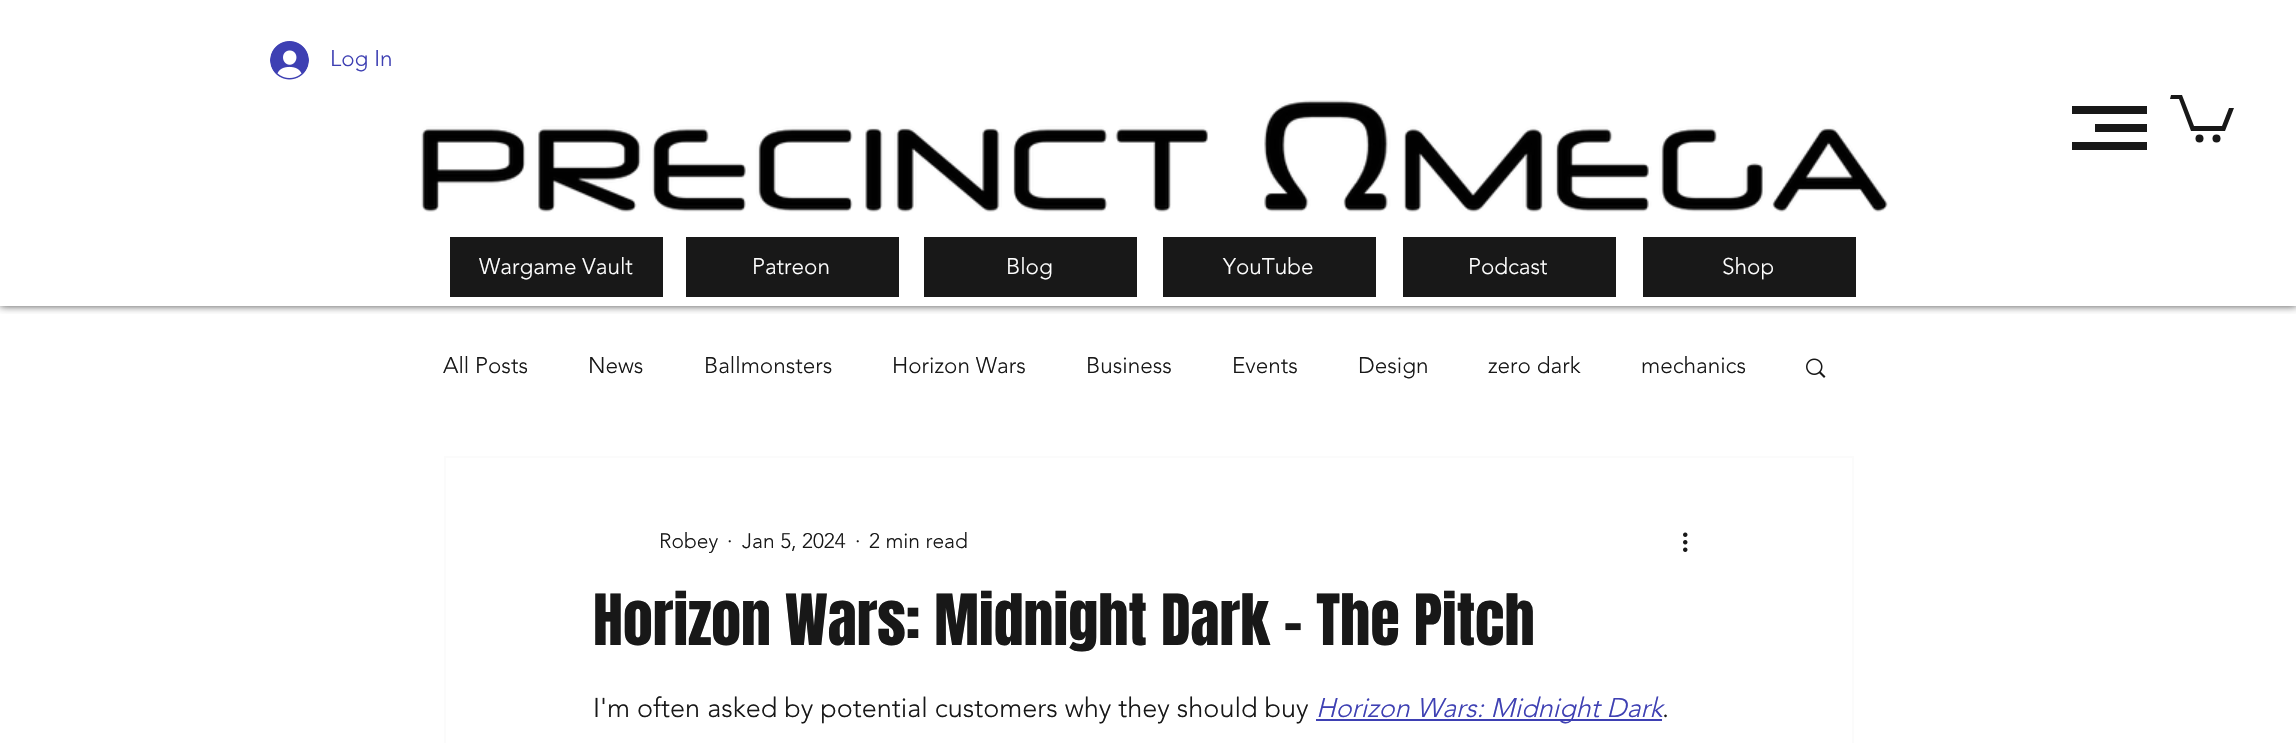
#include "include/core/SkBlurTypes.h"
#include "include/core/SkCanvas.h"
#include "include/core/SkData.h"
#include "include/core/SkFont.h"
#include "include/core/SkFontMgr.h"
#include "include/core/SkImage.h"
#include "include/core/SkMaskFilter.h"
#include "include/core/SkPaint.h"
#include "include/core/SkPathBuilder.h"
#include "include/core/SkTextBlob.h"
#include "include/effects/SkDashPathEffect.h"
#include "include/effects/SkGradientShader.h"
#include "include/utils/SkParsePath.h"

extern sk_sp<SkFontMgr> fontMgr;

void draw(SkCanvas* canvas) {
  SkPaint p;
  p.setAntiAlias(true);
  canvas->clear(SK_ColorWHITE);
  canvas->save();
  canvas->clipRect(SkRect::MakeLTRB(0, 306, 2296, 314));
  p.setColor(SkColorSetARGB(179, 0, 0, 0));
  p.setMaskFilter(SkMaskFilter::MakeBlur(kNormal_SkBlurStyle, 4));
  canvas->drawRect(SkRect::MakeLTRB(0, 0, 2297, 306), p);
  p.setMaskFilter(nullptr);
  canvas->restore();
  canvas->drawImageRect(SkImages::DeferredFromEncodedData(SkData::MakeFromFileName("images/1.png")), SkRect::MakeLTRB(270, 41, 309, 80), SkSamplingOptions());
  canvas->drawImageRect(SkImages::DeferredFromEncodedData(SkData::MakeFromFileName("images/2.png")), SkRect::MakeLTRB(421, 100, 1888, 212), SkSamplingOptions());
  p.setColor(SkColorSetRGB(24, 24, 24));
  canvas->drawRect(SkRect::MakeLTRB(450, 237, 663, 297), p);
  canvas->drawRect(SkRect::MakeLTRB(686, 237, 899, 297), p);
  canvas->drawRect(SkRect::MakeLTRB(924, 237, 1137, 297), p);
  canvas->drawRect(SkRect::MakeLTRB(1163, 237, 1376, 297), p);
  canvas->drawRect(SkRect::MakeLTRB(1403, 237, 1616, 297), p);
  canvas->drawRect(SkRect::MakeLTRB(1643, 237, 1856, 297), p);
  canvas->drawRect(SkRect::MakeLTRB(2072, 106, 2147, 114), p);
  canvas->drawRect(SkRect::MakeLTRB(2095, 124, 2147, 132), p);
  canvas->drawRect(SkRect::MakeLTRB(2072, 142, 2147, 150), p);
  canvas->drawPath(SkPathBuilder().moveTo(2234, 108).lineTo(2225, 131).lineTo(2191, 131).lineTo(2179, 99).lineTo(2170, 99).lineTo(2171, 95).lineTo(2182, 95).lineTo(2194, 126).lineTo(2222, 126).lineTo(2229, 108).detach(), p);
  canvas->drawCircle(2216.5f, 138.5f, 4, p);
  canvas->drawCircle(2199.5f, 138.5f, 4, p);
  canvas->drawImageRect(SkImages::DeferredFromEncodedData(SkData::MakeFromFileName("images/3.png")), SkRect::MakeLTRB(1806, 358, 1826, 378), SkSamplingOptions());
  p.setStyle(SkPaint::kStroke_Style);
  p.setStrokeWidth(2);
  p.setColor(SkColorSetRGB(251, 251, 251));
  canvas->drawRect(SkRect::MakeLTRB(445, 457, 1853, 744), p);
  canvas->drawImageRect(SkImages::DeferredFromEncodedData(SkData::MakeFromFileName("images/4.png")), SkRect::MakeLTRB(1683, 532, 1688, 552), SkSamplingOptions());
  p.setStyle(SkPaint::kFill_Style);
  p.setColor(SkColorSetRGB(62, 64, 179));
  canvas->drawRect(SkRect::MakeLTRB(1316, 719, 1662, 721), p);
  SkFont font1(fontMgr->matchFamilyStyle("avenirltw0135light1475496", SkFontStyle(300, SkFontStyle::kNormal_Width, SkFontStyle::kUpright_Slant)), 22.5f);
  font1.setSubpixel(true);
  canvas->drawString("Log In", 330, 66, font1, p);
  p.setColor(SK_ColorWHITE);
  canvas->drawString("Wargame Vault", 479, 274, font1, p);
  canvas->drawString("Patreon", 752, 274, font1, p);
  canvas->drawString("Blog", 1006, 274, font1, p);
  canvas->drawString("YouTube", 1223, 274, font1, p);
  canvas->drawString("Podcast", 1468, 274, font1, p);
  canvas->drawString("Shop", 1722, 274, font1, p);
  p.setColor(SkColorSetRGB(24, 24, 24));
  canvas->drawString("All Posts", 443, 373, font1, p);
  canvas->drawString("News", 588, 373, font1, p);
  canvas->drawString("Ballmonsters", 704, 373, font1, p);
  canvas->drawString("Horizon Wars", 892, 373, font1, p);
  canvas->drawString("Business", 1086, 373, font1, p);
  canvas->drawString("Events", 1232, 373, font1, p);
  canvas->drawString("Design", 1358, 373, font1, p);
  canvas->drawString("zero dark", 1488, 373, font1, p);
  canvas->drawString("mechanics", 1641, 373, font1, p);
  SkFont font2(fontMgr->matchFamilyStyle("avenirltw0135light1475496", SkFontStyle(300, SkFontStyle::kNormal_Width, SkFontStyle::kUpright_Slant)), 21);
  font2.setSubpixel(true);
  canvas->drawString("Robey", 659, 548, font2, p);
  canvas->drawString("·", 727, 548, font2, p);
  canvas->drawString("Jan 5, 2024", 742, 548, font2, p);
  canvas->drawString("·", 855, 548, font2, p);
  canvas->drawString("2 min read", 869, 548, font2, p);
  SkFont font3(fontMgr->matchFamilyStyle("Anton", SkFontStyle::Normal()), 60);
  font3.setSubpixel(true);
  canvas->drawString("Horizon Wars: Midnight Dark - The Pitch", 593, 645, font3, p);
  SkFont font4(fontMgr->matchFamilyStyle("avenirltw0135light1475496", SkFontStyle(300, SkFontStyle::kNormal_Width, SkFontStyle::kUpright_Slant)), 27);
  font4.setSubpixel(true);
  canvas->drawString("I'm often asked by potential customers why they should buy", 593, 717, font4, p);
  SkFont font5(fontMgr->matchFamilyStyle("avenirltw0135light1475496", SkFontStyle(300, SkFontStyle::kNormal_Width, SkFontStyle::kItalic_Slant)), 27);
  font5.setSubpixel(true);
  p.setColor(SkColorSetRGB(62, 64, 179));
  canvas->drawString("Horizon Wars: Midnight Dark", 1316, 717, font5, p);
  p.setColor(SkColorSetRGB(24, 24, 24));
  canvas->drawString(".", 1662, 717, font4, p);
}
